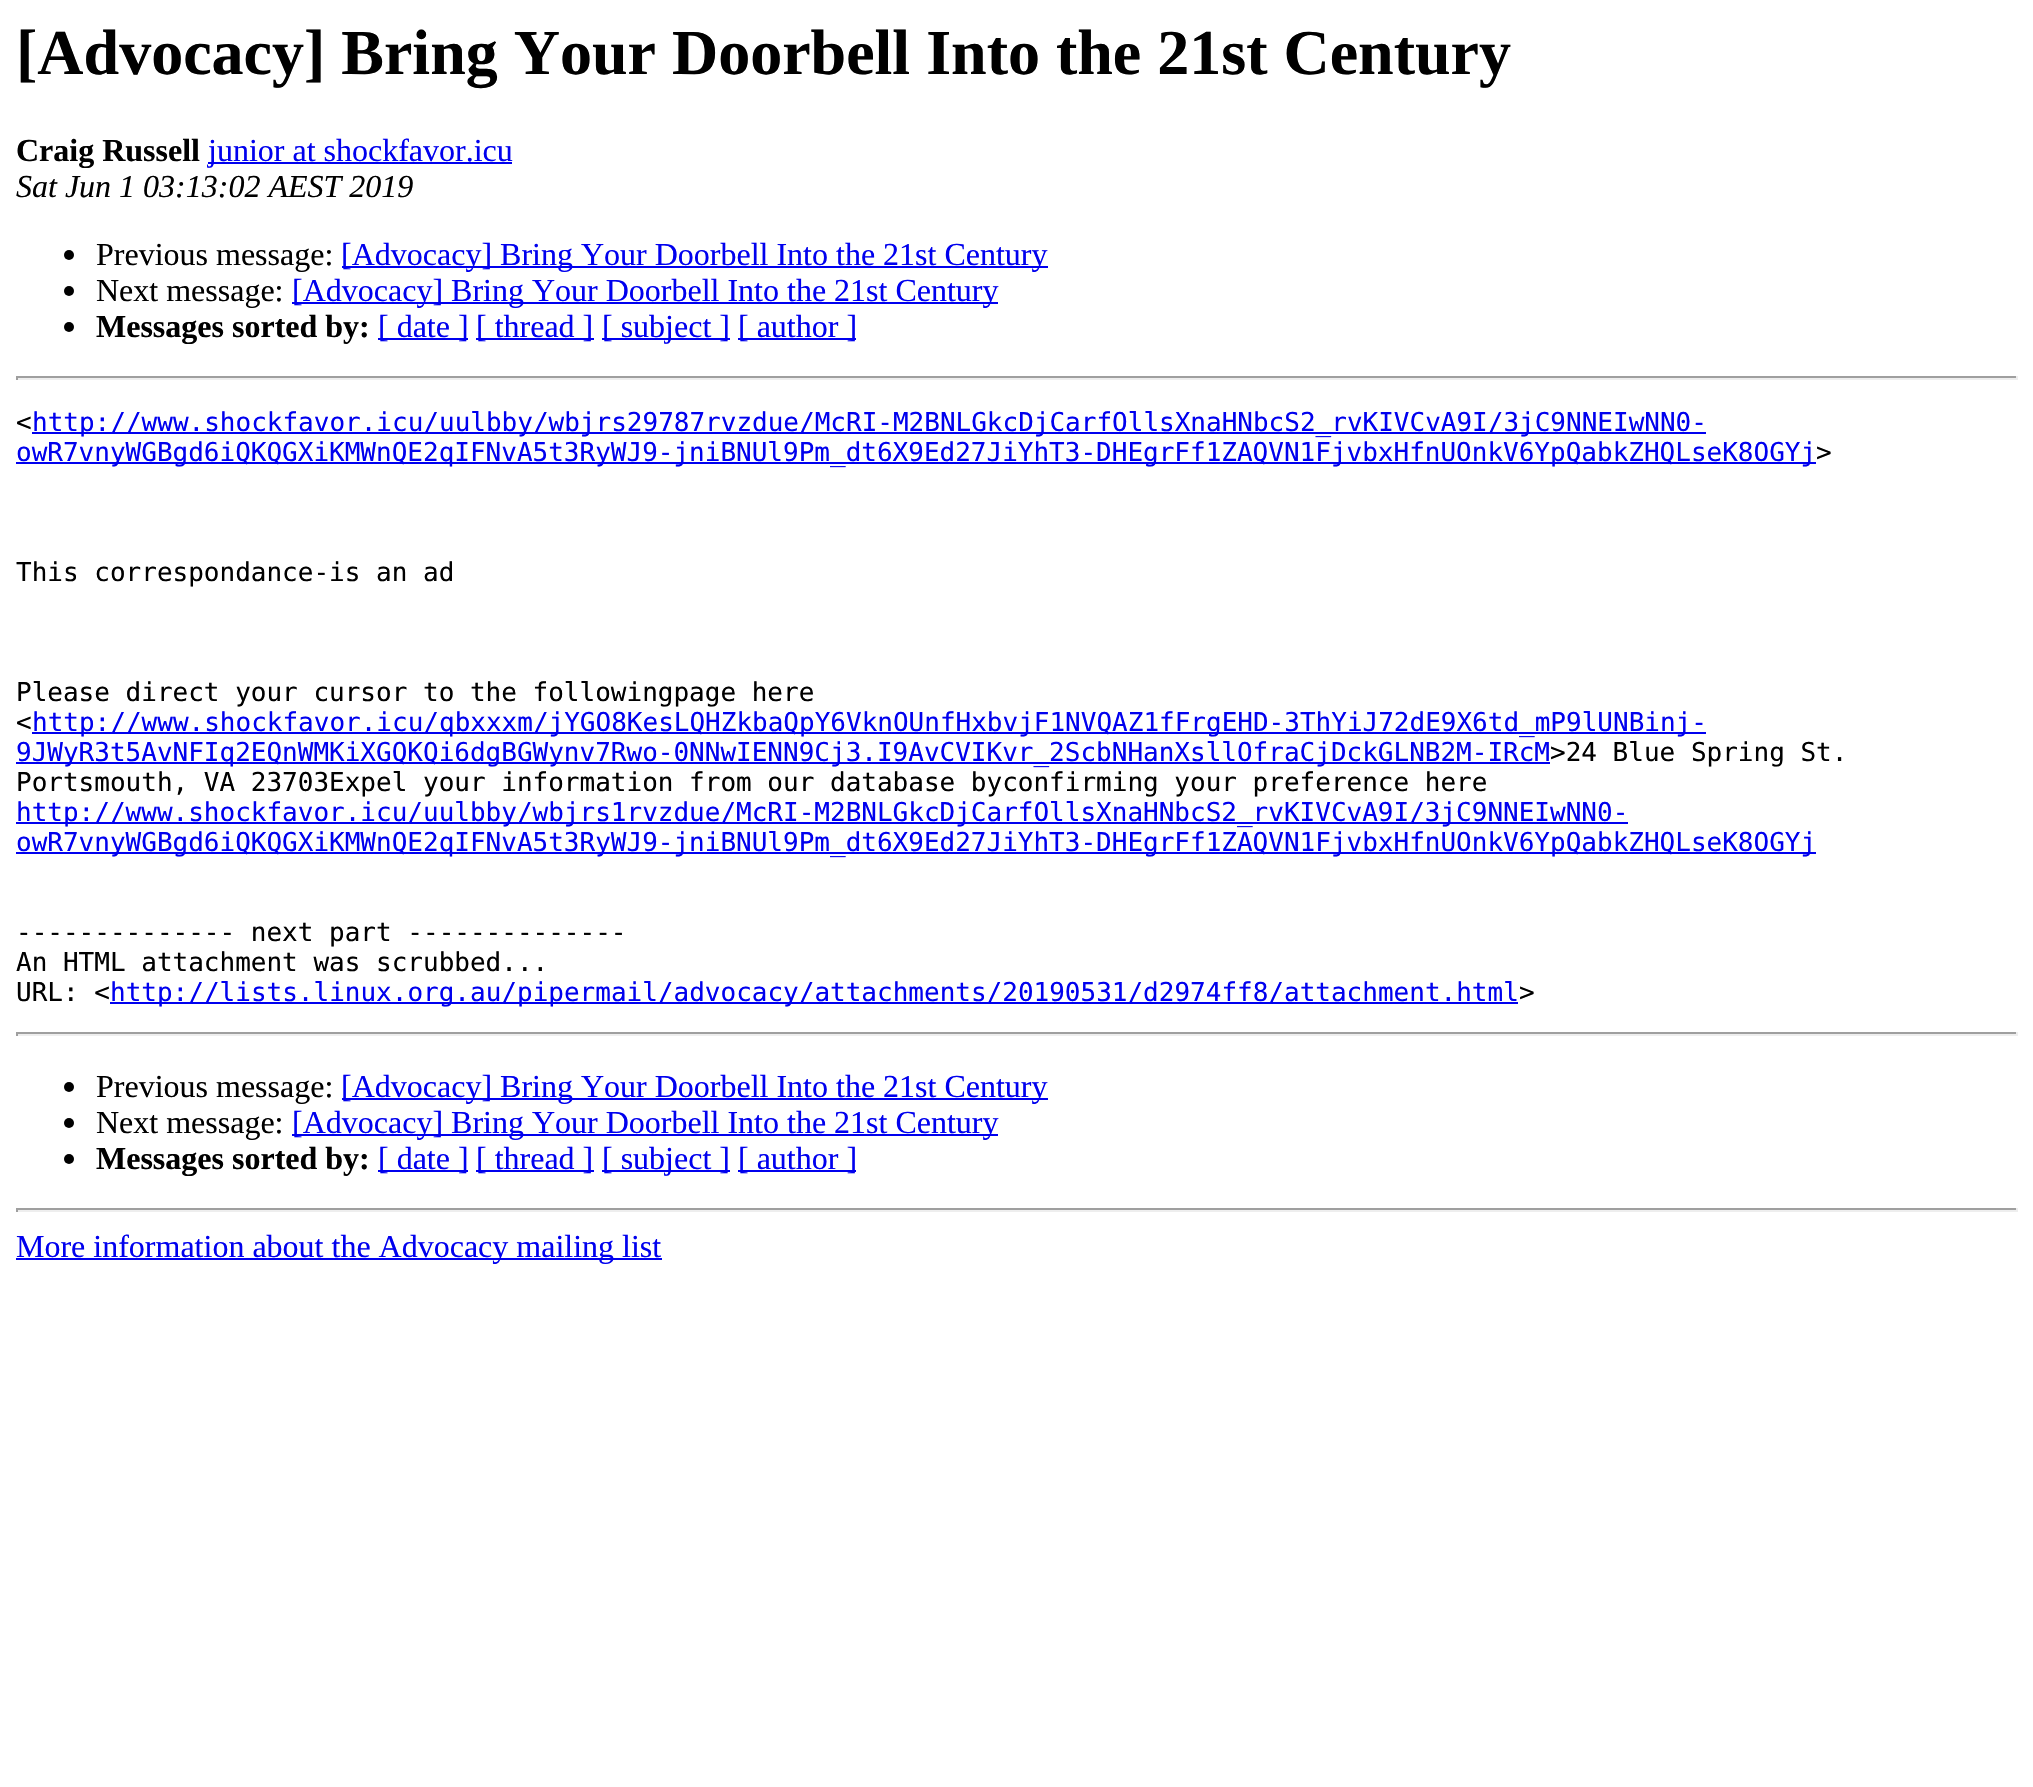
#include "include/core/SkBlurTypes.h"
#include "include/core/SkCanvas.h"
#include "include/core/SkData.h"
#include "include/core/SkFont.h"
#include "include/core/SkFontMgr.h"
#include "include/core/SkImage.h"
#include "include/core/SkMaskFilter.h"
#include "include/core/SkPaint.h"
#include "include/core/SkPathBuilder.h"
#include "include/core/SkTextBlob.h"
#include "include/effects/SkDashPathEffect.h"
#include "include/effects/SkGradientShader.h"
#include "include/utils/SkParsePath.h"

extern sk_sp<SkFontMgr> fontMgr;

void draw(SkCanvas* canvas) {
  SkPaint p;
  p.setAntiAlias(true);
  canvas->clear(SK_ColorWHITE);
  p.setColor(SkColorSetRGB(0, 0, 238));
  canvas->drawRect(SkRect::MakeLTRB(208, 162, 512, 164), p);
  p.setColor(SK_ColorBLACK);
  canvas->drawCircle(69, 255, 5, p);
  p.setColor(SkColorSetRGB(0, 0, 238));
  canvas->drawRect(SkRect::MakeLTRB(342, 266, 1048, 268), p);
  p.setColor(SK_ColorBLACK);
  canvas->drawCircle(69, 291, 5, p);
  p.setColor(SkColorSetRGB(0, 0, 238));
  canvas->drawRect(SkRect::MakeLTRB(292, 302, 998, 304), p);
  p.setColor(SK_ColorBLACK);
  canvas->drawCircle(69, 327, 5, p);
  p.setColor(SkColorSetRGB(0, 0, 238));
  canvas->drawRect(SkRect::MakeLTRB(378, 338, 468, 340), p);
  canvas->drawRect(SkRect::MakeLTRB(476, 338, 594, 340), p);
  canvas->drawRect(SkRect::MakeLTRB(602, 338, 730, 340), p);
  canvas->drawRect(SkRect::MakeLTRB(738, 338, 856, 340), p);
  p.setColor(SkColorSetRGB(159, 159, 159));
  canvas->drawRect(SkRect::MakeLTRB(16, 376, 2018, 378), p);
  p.setColor(SkColorSetRGB(238, 238, 238));
  canvas->drawRect(SkRect::MakeLTRB(2016, 376, 2018, 380), p);
  canvas->drawRect(SkRect::MakeLTRB(16, 378, 2018, 380), p);
  p.setColor(SkColorSetRGB(159, 159, 159));
  canvas->drawRect(SkRect::MakeLTRB(16, 376, 18, 380), p);
  p.setColor(SkColorSetRGB(0, 0, 238));
  canvas->drawRect(SkRect::MakeLTRB(32, 432, 1706, 434), p);
  canvas->drawRect(SkRect::MakeLTRB(16, 462, 1816, 464), p);
  canvas->drawRect(SkRect::MakeLTRB(32, 732, 1706, 734), p);
  canvas->drawRect(SkRect::MakeLTRB(16, 762, 1550, 764), p);
  canvas->drawRect(SkRect::MakeLTRB(16, 822, 1628, 824), p);
  canvas->drawRect(SkRect::MakeLTRB(16, 852, 1816, 854), p);
  canvas->drawRect(SkRect::MakeLTRB(110, 1002, 1518, 1004), p);
  p.setColor(SkColorSetRGB(159, 159, 159));
  canvas->drawRect(SkRect::MakeLTRB(16, 1032, 2018, 1034), p);
  p.setColor(SkColorSetRGB(238, 238, 238));
  canvas->drawRect(SkRect::MakeLTRB(2016, 1032, 2018, 1036), p);
  canvas->drawRect(SkRect::MakeLTRB(16, 1034, 2018, 1036), p);
  p.setColor(SkColorSetRGB(159, 159, 159));
  canvas->drawRect(SkRect::MakeLTRB(16, 1032, 18, 1036), p);
  p.setColor(SK_ColorBLACK);
  canvas->drawCircle(69, 1087, 5, p);
  p.setColor(SkColorSetRGB(0, 0, 238));
  canvas->drawRect(SkRect::MakeLTRB(342, 1098, 1048, 1100), p);
  p.setColor(SK_ColorBLACK);
  canvas->drawCircle(69, 1123, 5, p);
  p.setColor(SkColorSetRGB(0, 0, 238));
  canvas->drawRect(SkRect::MakeLTRB(292, 1134, 998, 1136), p);
  p.setColor(SK_ColorBLACK);
  canvas->drawCircle(69, 1159, 5, p);
  p.setColor(SkColorSetRGB(0, 0, 238));
  canvas->drawRect(SkRect::MakeLTRB(378, 1170, 468, 1172), p);
  canvas->drawRect(SkRect::MakeLTRB(476, 1170, 594, 1172), p);
  canvas->drawRect(SkRect::MakeLTRB(602, 1170, 730, 1172), p);
  canvas->drawRect(SkRect::MakeLTRB(738, 1170, 856, 1172), p);
  p.setColor(SkColorSetRGB(159, 159, 159));
  canvas->drawRect(SkRect::MakeLTRB(16, 1208, 2018, 1210), p);
  p.setColor(SkColorSetRGB(238, 238, 238));
  canvas->drawRect(SkRect::MakeLTRB(2016, 1208, 2018, 1212), p);
  canvas->drawRect(SkRect::MakeLTRB(16, 1210, 2018, 1212), p);
  p.setColor(SkColorSetRGB(159, 159, 159));
  canvas->drawRect(SkRect::MakeLTRB(16, 1208, 18, 1212), p);
  p.setColor(SkColorSetRGB(0, 0, 238));
  canvas->drawRect(SkRect::MakeLTRB(16, 1258, 662, 1260), p);
  SkFont font1(fontMgr->matchFamilyStyle("Liberation Serif", SkFontStyle::Bold()), 64);
  font1.setSubpixel(true);
  p.setColor(SK_ColorBLACK);
  canvas->drawString("[Advocacy] Bring Your Doorbell Into the 21st Century", 16, 74, font1, p);
  SkFont font2(fontMgr->matchFamilyStyle("Liberation Serif", SkFontStyle::Bold()), 32);
  font2.setSubpixel(true);
  canvas->drawString("Craig Russell", 16, 161, font2, p);
  SkFont font3(fontMgr->matchFamilyStyle("Liberation Serif", SkFontStyle::Normal()), 32);
  font3.setSubpixel(true);
  p.setColor(SkColorSetRGB(0, 0, 238));
  canvas->drawString("junior at shockfavor.icu", 208, 161, font3, p);
  SkFont font4(fontMgr->matchFamilyStyle("Liberation Serif", SkFontStyle::Italic()), 32);
  font4.setSubpixel(true);
  p.setColor(SK_ColorBLACK);
  canvas->drawString("Sat Jun 1 03:13:02 AEST 2019", 16, 197, font4, p);
  canvas->drawString("Previous message:", 96, 265, font3, p);
  p.setColor(SkColorSetRGB(0, 0, 238));
  canvas->drawString("[Advocacy] Bring Your Doorbell Into the 21st Century", 341, 265, font3, p);
  p.setColor(SK_ColorBLACK);
  canvas->drawString("Next message:", 96, 301, font3, p);
  p.setColor(SkColorSetRGB(0, 0, 238));
  canvas->drawString("[Advocacy] Bring Your Doorbell Into the 21st Century", 292, 301, font3, p);
  p.setColor(SK_ColorBLACK);
  canvas->drawString("Messages sorted by:", 96, 337, font2, p);
  p.setColor(SkColorSetRGB(0, 0, 238));
  canvas->drawString("[ date ]", 378, 337, font3, p);
  canvas->drawString("[ thread ]", 476, 337, font3, p);
  canvas->drawString("[ subject ]", 602, 337, font3, p);
  canvas->drawString("[ author ]", 738, 337, font3, p);
  SkFont font5(fontMgr->matchFamilyStyle("DejaVu Sans Mono", SkFontStyle::Normal()), 26);
  font5.setSubpixel(true);
  p.setColor(SK_ColorBLACK);
  canvas->drawString("<", 16, 431, font5, p);
  p.setColor(SkColorSetRGB(0, 0, 238));
  canvas->drawString("http://www.shockfavor.icu/uulbby/wbjrs29787rvzdue/McRI-M2BNLGkcDjCarfOllsXnaHNbcS2_rvKIVCvA9I/3jC9NNEIwNN0-", 32, 431, font5, p);
  canvas->drawString("owR7vnyWGBgd6iQKQGXiKMWnQE2qIFNvA5t3RyWJ9-jniBNUl9Pm_dt6X9Ed27JiYhT3-DHEgrFf1ZAQVN1FjvbxHfnUOnkV6YpQabkZHQLseK8OGYj", 16, 461, font5, p);
  p.setColor(SK_ColorBLACK);
  canvas->drawString(">", 1816, 461, font5, p);
  canvas->drawString("This correspondance-is an ad", 16, 581, font5, p);
  canvas->drawString("Please direct your cursor to the followingpage here", 16, 701, font5, p);
  canvas->drawString("<", 16, 731, font5, p);
  p.setColor(SkColorSetRGB(0, 0, 238));
  canvas->drawString("http://www.shockfavor.icu/qbxxxm/jYGO8KesLQHZkbaQpY6VknOUnfHxbvjF1NVQAZ1fFrgEHD-3ThYiJ72dE9X6td_mP9lUNBinj-", 32, 731, font5, p);
  canvas->drawString("9JWyR3t5AvNFIq2EQnWMKiXGQKQi6dgBGWynv7Rwo-0NNwIENN9Cj3.I9AvCVIKvr_2ScbNHanXsllOfraCjDckGLNB2M-IRcM", 16, 761, font5, p);
  p.setColor(SK_ColorBLACK);
  canvas->drawString(">24 Blue Spring St.", 1550, 761, font5, p);
  canvas->drawString("Portsmouth, VA 23703Expel your information from our database byconfirming your preference here", 16, 791, font5, p);
  p.setColor(SkColorSetRGB(0, 0, 238));
  canvas->drawString("http://www.shockfavor.icu/uulbby/wbjrs1rvzdue/McRI-M2BNLGkcDjCarfOllsXnaHNbcS2_rvKIVCvA9I/3jC9NNEIwNN0-", 16, 821, font5, p);
  canvas->drawString("owR7vnyWGBgd6iQKQGXiKMWnQE2qIFNvA5t3RyWJ9-jniBNUl9Pm_dt6X9Ed27JiYhT3-DHEgrFf1ZAQVN1FjvbxHfnUOnkV6YpQabkZHQLseK8OGYj", 16, 851, font5, p);
  p.setColor(SK_ColorBLACK);
  canvas->drawString("-------------- next part --------------", 16, 941, font5, p);
  canvas->drawString("An HTML attachment was scrubbed...", 16, 971, font5, p);
  canvas->drawString("URL: <", 16, 1001, font5, p);
  p.setColor(SkColorSetRGB(0, 0, 238));
  canvas->drawString("http://lists.linux.org.au/pipermail/advocacy/attachments/20190531/d2974ff8/attachment.html", 110, 1001, font5, p);
  p.setColor(SK_ColorBLACK);
  canvas->drawString(">", 1519, 1001, font5, p);
  canvas->drawString("Previous message:", 96, 1097, font3, p);
  p.setColor(SkColorSetRGB(0, 0, 238));
  canvas->drawString("[Advocacy] Bring Your Doorbell Into the 21st Century", 341, 1097, font3, p);
  p.setColor(SK_ColorBLACK);
  canvas->drawString("Next message:", 96, 1133, font3, p);
  p.setColor(SkColorSetRGB(0, 0, 238));
  canvas->drawString("[Advocacy] Bring Your Doorbell Into the 21st Century", 292, 1133, font3, p);
  p.setColor(SK_ColorBLACK);
  canvas->drawString("Messages sorted by:", 96, 1169, font2, p);
  p.setColor(SkColorSetRGB(0, 0, 238));
  canvas->drawString("[ date ]", 378, 1169, font3, p);
  canvas->drawString("[ thread ]", 476, 1169, font3, p);
  canvas->drawString("[ subject ]", 602, 1169, font3, p);
  canvas->drawString("[ author ]", 738, 1169, font3, p);
  canvas->drawString("More information about the Advocacy mailing list", 16, 1257, font3, p);
}
